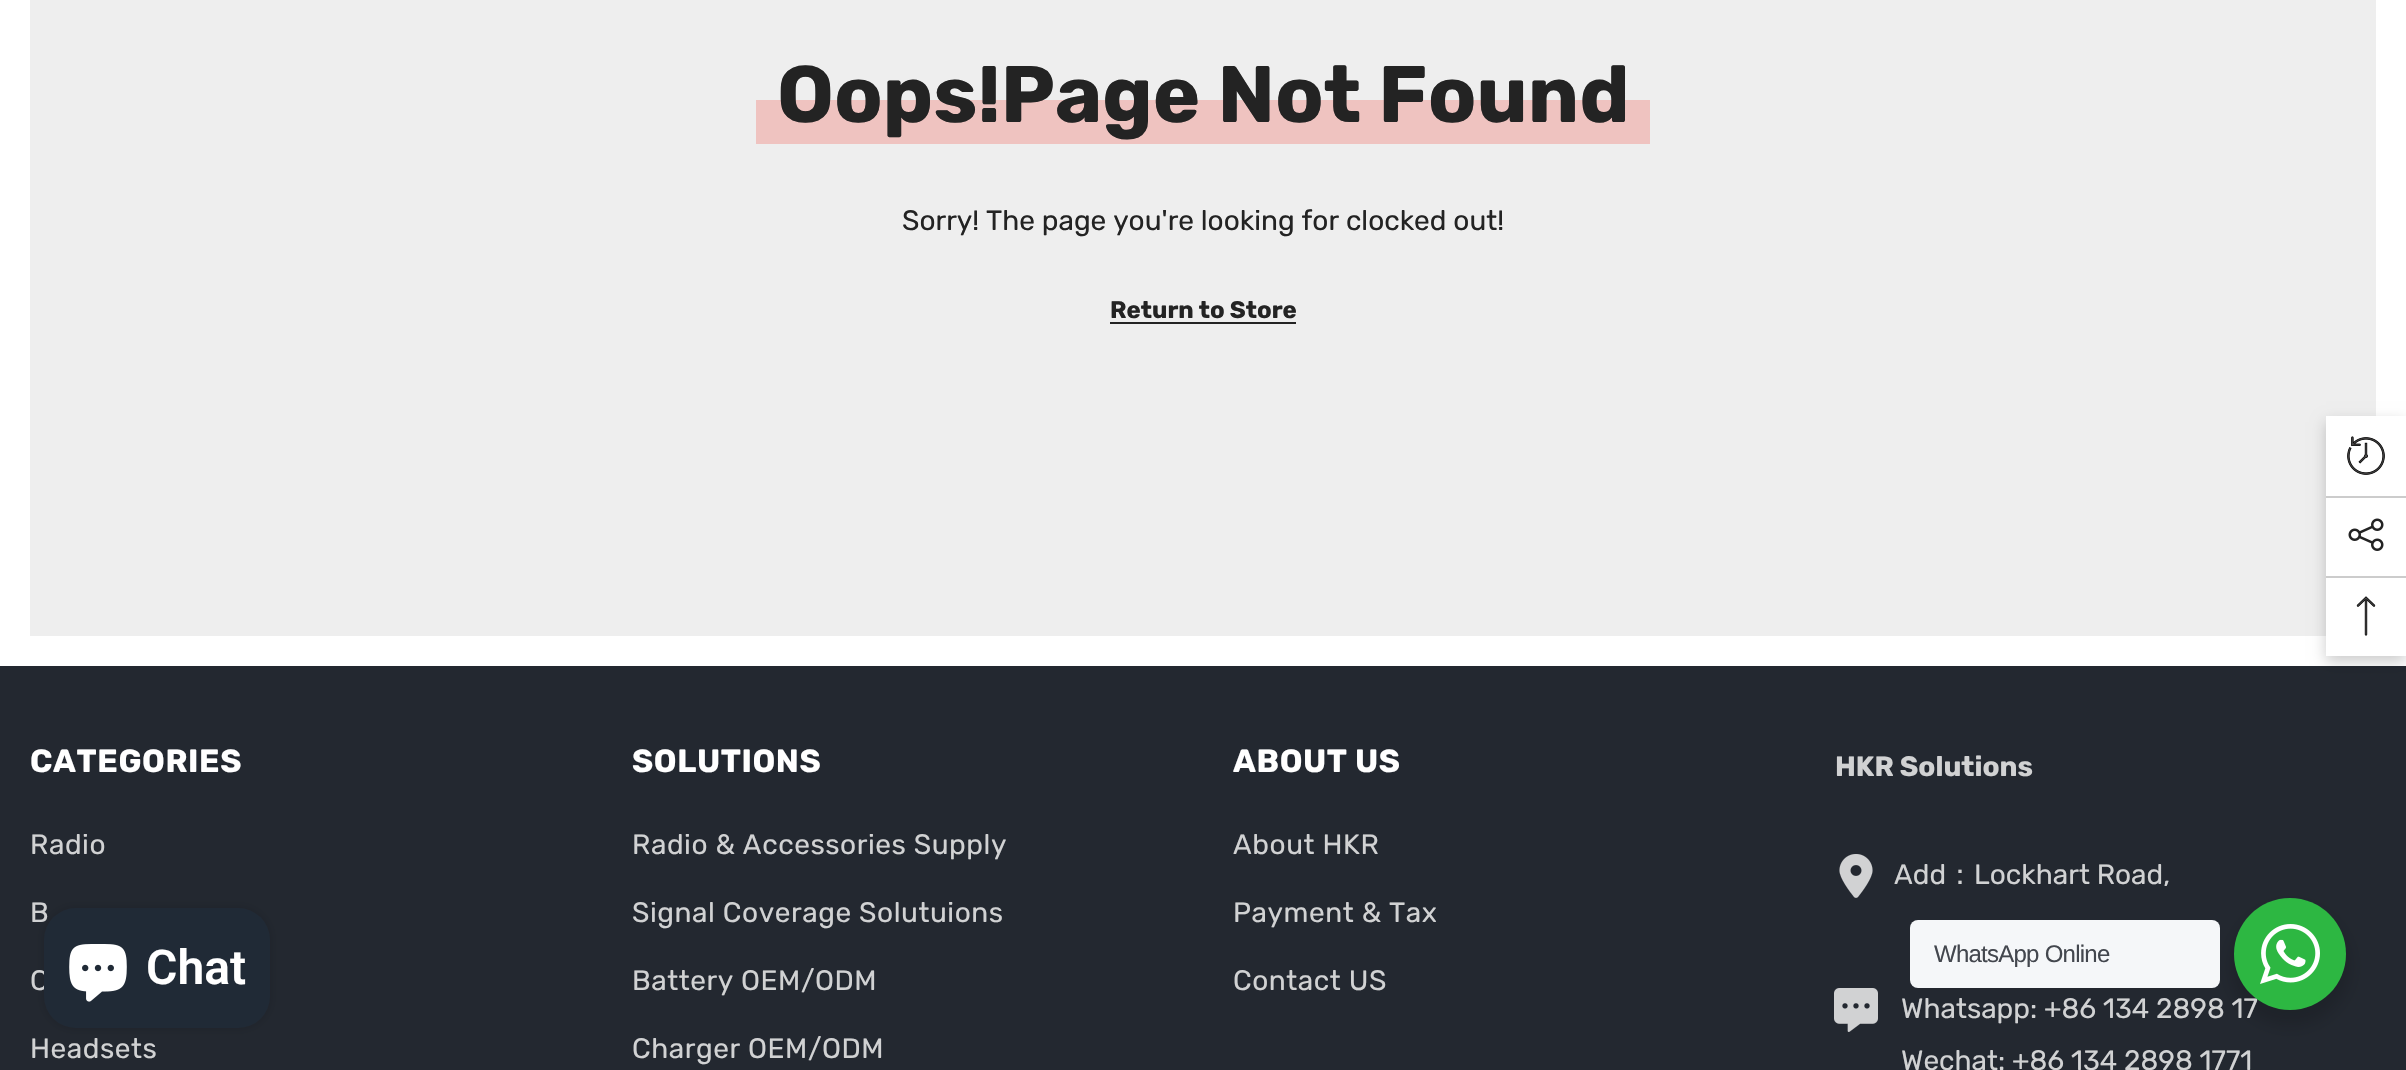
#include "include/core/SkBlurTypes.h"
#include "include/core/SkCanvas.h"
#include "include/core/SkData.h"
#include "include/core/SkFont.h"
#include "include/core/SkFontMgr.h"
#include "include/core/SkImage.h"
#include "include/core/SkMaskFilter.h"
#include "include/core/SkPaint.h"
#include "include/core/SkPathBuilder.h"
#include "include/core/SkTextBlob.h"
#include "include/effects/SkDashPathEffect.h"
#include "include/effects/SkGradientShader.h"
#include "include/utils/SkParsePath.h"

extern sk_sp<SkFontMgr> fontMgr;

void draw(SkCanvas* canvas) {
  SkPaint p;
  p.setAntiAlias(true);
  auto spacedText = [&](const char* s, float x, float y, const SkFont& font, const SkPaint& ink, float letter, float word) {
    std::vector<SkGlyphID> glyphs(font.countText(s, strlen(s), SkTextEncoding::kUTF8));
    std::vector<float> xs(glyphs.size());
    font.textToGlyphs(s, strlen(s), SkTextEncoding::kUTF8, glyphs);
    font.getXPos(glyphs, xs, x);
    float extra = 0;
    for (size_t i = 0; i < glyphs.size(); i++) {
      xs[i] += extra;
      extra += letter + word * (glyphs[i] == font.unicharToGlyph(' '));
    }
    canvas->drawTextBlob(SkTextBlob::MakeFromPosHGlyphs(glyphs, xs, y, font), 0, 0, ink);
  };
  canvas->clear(SK_ColorWHITE);
  p.setColor(SkColorSetRGB(238, 238, 238));
  canvas->drawRect(SkRect::MakeLTRB(30, 0, 2376, 636), p);
  p.setColor(SkColorSetRGB(239, 195, 192));
  canvas->drawRect(SkRect::MakeLTRB(756, 100, 1650, 144), p);
  p.setColor(SkColorSetRGB(35, 35, 35));
  canvas->drawRect(SkRect::MakeLTRB(1110, 322, 1296, 324), p);
  p.setColor(SkColorSetRGB(35, 40, 48));
  canvas->drawRect(SkRect::MakeLTRB(0, 666, 2406, 1070), p);
  canvas->drawImageRect(SkImages::DeferredFromEncodedData(SkData::MakeFromFileName("images/1.png")), SkRect::MakeLTRB(1839, 854, 1873, 898), SkSamplingOptions());
  canvas->drawImageRect(SkImages::DeferredFromEncodedData(SkData::MakeFromFileName("images/2.png")), SkRect::MakeLTRB(1834, 988, 1878, 1032), SkSamplingOptions());
  p.setColor(SkColorSetARGB(51, 0, 0, 0));
  p.setMaskFilter(SkMaskFilter::MakeBlur(kNormal_SkBlurStyle, 7));
  canvas->drawRect(SkRect::MakeLTRB(2326, 422, 2406, 662), p);
  p.setMaskFilter(nullptr);
  p.setColor(SK_ColorWHITE);
  canvas->drawRect(SkRect::MakeLTRB(2326, 416, 2406, 656), p);
  canvas->drawImageRect(SkImages::DeferredFromEncodedData(SkData::MakeFromFileName("images/3.png")), SkRect::MakeLTRB(2347, 436, 2385, 475), SkSamplingOptions());
  p.setColor(SkColorSetRGB(204, 204, 204));
  canvas->drawRect(SkRect::MakeLTRB(2326, 496, 2406, 498), p);
  canvas->drawImageRect(SkImages::DeferredFromEncodedData(SkData::MakeFromFileName("images/4.png")), SkRect::MakeLTRB(2348, 518, 2384, 551), SkSamplingOptions());
  canvas->drawRect(SkRect::MakeLTRB(2326, 576, 2406, 578), p);
  canvas->drawImageRect(SkImages::DeferredFromEncodedData(SkData::MakeFromFileName("images/5.png")), SkRect::MakeLTRB(2356, 596, 2376, 636), SkSamplingOptions());
  p.setColor(SkColorSetARGB(38, 0, 0, 0));
  p.setMaskFilter(SkMaskFilter::MakeBlur(kNormal_SkBlurStyle, 5));
  canvas->drawRoundRect(SkRect::MakeLTRB(44, 908, 270, 1028), 32, 32, p);
  p.setMaskFilter(nullptr);
  p.setColor(SkColorSetARGB(36, 0, 0, 0));
  p.setMaskFilter(SkMaskFilter::MakeBlur(kNormal_SkBlurStyle, 8));
  canvas->drawRoundRect(SkRect::MakeLTRB(2230, 906, 2350, 1026), 60, 60, p);
  p.setMaskFilter(nullptr);
  p.setColor(SkColorSetRGB(245, 247, 249));
  canvas->drawRoundRect(SkRect::MakeLTRB(1910, 920, 2220, 988), 8, 8, p);
  SkFont font1(fontMgr->matchFamilyStyle("Rubik", SkFontStyle::Bold()), 80);
  font1.setSubpixel(true);
  p.setColor(SkColorSetRGB(35, 35, 35));
  canvas->drawString("Oops!Page Not Found", 777, 122, font1, p);
  SkFont font2(fontMgr->matchFamilyStyle("Rubik", SkFontStyle::Normal()), 28);
  font2.setSubpixel(true);
  canvas->drawString("Sorry! The page you're looking for clocked out!", 902, 230, font2, p);
  SkFont font3(fontMgr->matchFamilyStyle("Rubik", SkFontStyle::Bold()), 24);
  font3.setSubpixel(true);
  canvas->drawString("Return to Store", 1110, 318, font3, p);
  SkFont font4(fontMgr->matchFamilyStyle("Rubik", SkFontStyle::Bold()), 32);
  font4.setSubpixel(true);
  p.setColor(SK_ColorWHITE);
  spacedText("CATEGORIES", 30, 772, font4, p, 0.6f, 0);
  p.setColor(SkColorSetRGB(209, 210, 211));
  spacedText("Radio", 30, 854, font2, p, 0.55f, 0);
  spacedText("B", 30, 922, font2, p, 0.55f, 0);
  spacedText("C", 30, 990, font2, p, 0.55f, 0);
  spacedText("Headsets", 30, 1058, font2, p, 0.55f, 0);
  p.setColor(SK_ColorWHITE);
  spacedText("SOLUTIONS", 632, 772, font4, p, 0.6f, 0);
  p.setColor(SkColorSetRGB(209, 210, 211));
  spacedText("Radio & Accessories Supply", 632, 854, font2, p, 0.55f, 0);
  spacedText("Signal Coverage Solutuions", 632, 922, font2, p, 0.55f, 0);
  spacedText("Battery OEM/ODM", 632, 990, font2, p, 0.55f, 0);
  spacedText("Charger OEM/ODM", 632, 1058, font2, p, 0.55f, 0);
  p.setColor(SK_ColorWHITE);
  spacedText("ABOUT US", 1233, 772, font4, p, 0.6f, 0);
  p.setColor(SkColorSetRGB(209, 210, 211));
  spacedText("About HKR", 1233, 854, font2, p, 0.55f, 0);
  spacedText("Payment & Tax", 1233, 922, font2, p, 0.55f, 0);
  spacedText("Contact US", 1233, 990, font2, p, 0.55f, 0);
  SkFont font5(fontMgr->matchFamilyStyle("Rubik", SkFontStyle::Bold()), 28);
  font5.setSubpixel(true);
  canvas->drawString("HKR Solutions", 1835, 776, font5, p);
  canvas->drawString("Add", 1894, 884, font2, p);
  SkFont font6(fontMgr->matchFamilyStyle("WenQuanYi Zen Hei", SkFontStyle(500, SkFontStyle::kNormal_Width, SkFontStyle::kUpright_Slant)), 28);
  font6.setSubpixel(true);
  canvas->drawString("：", 1946, 884, font6, p);
  canvas->drawString("Lockhart Road,", 1974, 884, font2, p);
  canvas->drawString("Whatsapp: +86 134 2898 17", 1901, 1018, font2, p);
  canvas->drawString("Wechat: +86 134 2898 1771", 1901, 1070, font2, p);
  p.setColor(SkColorSetRGB(32, 42, 54));
  canvas->drawRoundRect(SkRect::MakeLTRB(44, 908, 270, 1028), 32, 32, p);
  canvas->drawImageRect(SkImages::DeferredFromEncodedData(SkData::MakeFromFileName("images/6.png")), SkRect::MakeLTRB(69, 944, 127, 1002), SkSamplingOptions());
  SkFont font7(fontMgr->matchFamilyStyle("Roboto", SkFontStyle(600, SkFontStyle::kNormal_Width, SkFontStyle::kUpright_Slant)), 48);
  font7.setSubpixel(true);
  p.setColor(SK_ColorWHITE);
  canvas->drawString("Chat", 146, 984, font7, p);
  SkFont font8(fontMgr->matchFamilyStyle("Liberation Sans", SkFontStyle::Normal()), 24);
  font8.setSubpixel(true);
  p.setColor(SkColorSetRGB(67, 71, 78));
  spacedText("WhatsApp Online", 1934, 962, font8, p, -0.75f, 0);
  p.setColor(SkColorSetRGB(45, 183, 66));
  canvas->drawCircle(2290, 954, 56, p);
  canvas->drawImageRect(SkImages::DeferredFromEncodedData(SkData::MakeFromFileName("images/7.png")), SkRect::MakeLTRB(2260, 924, 2320, 984), SkSamplingOptions());
}
